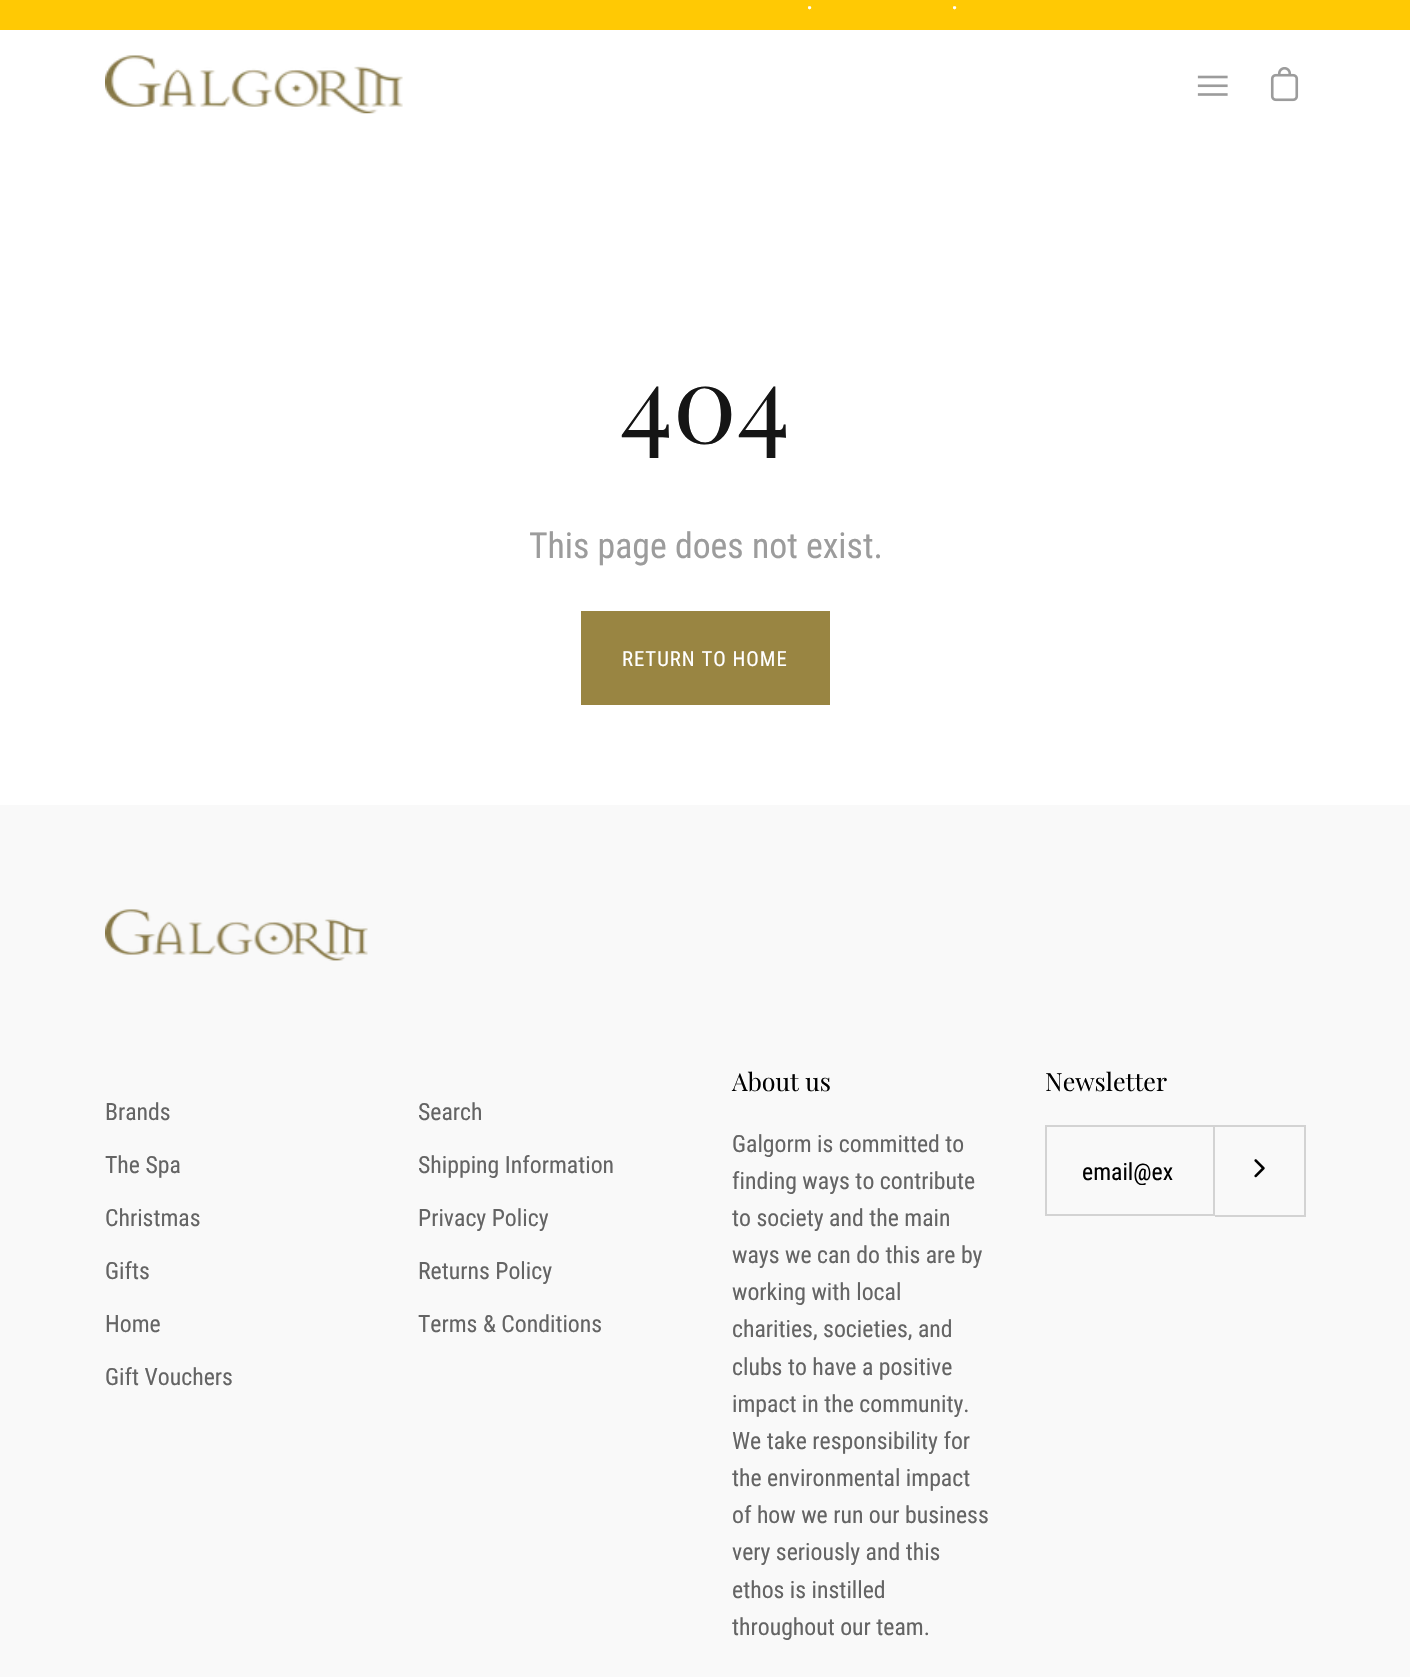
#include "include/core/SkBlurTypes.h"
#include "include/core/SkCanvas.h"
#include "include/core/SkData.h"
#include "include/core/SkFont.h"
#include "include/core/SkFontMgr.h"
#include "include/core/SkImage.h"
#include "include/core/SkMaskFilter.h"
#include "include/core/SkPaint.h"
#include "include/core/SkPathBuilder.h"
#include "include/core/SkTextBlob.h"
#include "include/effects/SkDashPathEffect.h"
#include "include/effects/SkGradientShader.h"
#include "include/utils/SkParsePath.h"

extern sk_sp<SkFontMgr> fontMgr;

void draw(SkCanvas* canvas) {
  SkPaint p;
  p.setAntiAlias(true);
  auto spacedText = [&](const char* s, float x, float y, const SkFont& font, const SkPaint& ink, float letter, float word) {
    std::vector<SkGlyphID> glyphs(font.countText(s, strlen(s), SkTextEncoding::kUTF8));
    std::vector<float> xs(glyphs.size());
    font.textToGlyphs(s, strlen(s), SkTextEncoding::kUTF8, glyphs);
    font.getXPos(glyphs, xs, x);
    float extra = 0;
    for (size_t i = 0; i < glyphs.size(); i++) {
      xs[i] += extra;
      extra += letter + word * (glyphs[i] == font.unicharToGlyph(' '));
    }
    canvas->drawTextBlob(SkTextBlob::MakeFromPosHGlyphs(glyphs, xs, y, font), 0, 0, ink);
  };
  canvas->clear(SK_ColorWHITE);
  p.setColor(SkColorSetRGB(255, 201, 4));
  canvas->drawRect(SkRect::MakeLTRB(0, 0, 1410, 30), p);
  canvas->drawImageRect(SkImages::DeferredFromEncodedData(SkData::MakeFromFileName("images/1.png")), SkRect::MakeLTRB(105, 55, 403, 114), SkSamplingOptions());
  canvas->drawImageRect(SkImages::DeferredFromEncodedData(SkData::MakeFromFileName("images/2.png")), SkRect::MakeLTRB(1197, 75, 1228, 96), SkSamplingOptions());
  canvas->drawImageRect(SkImages::DeferredFromEncodedData(SkData::MakeFromFileName("images/3.png")), SkRect::MakeLTRB(1270, 67, 1299, 102), SkSamplingOptions());
  p.setColor(SkColorSetRGB(153, 133, 66));
  canvas->drawRect(SkRect::MakeLTRB(581, 611, 830, 705), p);
  p.setColor(SkColorSetRGB(249, 249, 249));
  canvas->drawRect(SkRect::MakeLTRB(0, 805, 1410, 1677), p);
  canvas->drawImageRect(SkImages::DeferredFromEncodedData(SkData::MakeFromFileName("images/4.png")), SkRect::MakeLTRB(105, 909, 368, 961), SkSamplingOptions());
  p.setStyle(SkPaint::kStroke_Style);
  p.setStrokeWidth(2);
  p.setColor(SkColorSetRGB(211, 211, 211));
  canvas->drawRect(SkRect::MakeLTRB(1046, 1126, 1214, 1215), p);
  p.setStyle(SkPaint::kFill_Style);
  canvas->drawRect(SkRect::MakeLTRB(1215, 1125, 1306, 1127), p);
  canvas->drawRect(SkRect::MakeLTRB(1304, 1125, 1306, 1216), p);
  canvas->drawRect(SkRect::MakeLTRB(1215, 1215, 1306, 1217), p);
  canvas->drawImageRect(SkImages::DeferredFromEncodedData(SkData::MakeFromFileName("images/5.png")), SkRect::MakeLTRB(1254, 1159, 1265, 1178), SkSamplingOptions());
  SkFont font1(fontMgr->matchFamilyStyle("Roboto Condensed", SkFontStyle::Normal()), 28);
  font1.setSubpixel(true);
  p.setColor(SK_ColorWHITE);
  canvas->drawString(".", 806, 9, font1, p);
  canvas->drawString(".", 951, 9, font1, p);
  SkFont font2(fontMgr->matchFamilyStyle("Playfair Display", SkFontStyle::Normal()), 107);
  font2.setSubpixel(true);
  p.setColor(SkColorSetRGB(21, 21, 21));
  canvas->drawString("404", 620, 443, font2, p);
  SkFont font3(fontMgr->matchFamilyStyle("Roboto Condensed", SkFontStyle::Normal()), 35.75f);
  font3.setSubpixel(true);
  p.setColor(SkColorSetRGB(156, 156, 156));
  canvas->drawString("This page does not exist.", 529, 558, font3, p);
  SkFont font4(fontMgr->matchFamilyStyle("Roboto Condensed", SkFontStyle::Normal()), 20.75f);
  font4.setSubpixel(true);
  p.setColor(SK_ColorWHITE);
  spacedText("RETURN TO HOME", 622, 666, font4, p, 1, 0);
  SkFont font5(fontMgr->matchFamilyStyle("Roboto Condensed", SkFontStyle::Normal()), 23.75f);
  font5.setSubpixel(true);
  p.setColor(SkColorSetRGB(100, 100, 100));
  canvas->drawString("Brands", 105, 1120, font5, p);
  canvas->drawString("The Spa", 105, 1173, font5, p);
  canvas->drawString("Christmas", 105, 1226, font5, p);
  canvas->drawString("Gifts", 105, 1279, font5, p);
  canvas->drawString("Home", 105, 1332, font5, p);
  canvas->drawString("Gift Vouchers", 105, 1385, font5, p);
  canvas->drawString("Search", 418, 1120, font5, p);
  canvas->drawString("Shipping Information", 418, 1173, font5, p);
  canvas->drawString("Privacy Policy", 418, 1226, font5, p);
  canvas->drawString("Returns Policy", 418, 1279, font5, p);
  canvas->drawString("Terms & Conditions", 418, 1332, font5, p);
  SkFont font6(fontMgr->matchFamilyStyle("Playfair Display", SkFontStyle::Normal()), 25);
  font6.setSubpixel(true);
  p.setColor(SK_ColorBLACK);
  canvas->drawString("About us", 732, 1091, font6, p);
  p.setColor(SkColorSetRGB(100, 100, 100));
  canvas->drawString("Galgorm is committed to", 732, 1152, font5, p);
  canvas->drawString("finding ways to contribute", 732, 1189, font5, p);
  canvas->drawString("to society and the main", 732, 1226, font5, p);
  canvas->drawString("ways we can do this are by", 732, 1263, font5, p);
  canvas->drawString("working with local", 732, 1300, font5, p);
  canvas->drawString("charities, societies, and", 732, 1337, font5, p);
  canvas->drawString("clubs to have a positive", 732, 1375, font5, p);
  canvas->drawString("impact in the community.", 732, 1412, font5, p);
  canvas->drawString("We take responsibility for", 732, 1449, font5, p);
  canvas->drawString("the environmental impact", 732, 1486, font5, p);
  canvas->drawString("of how we run our business", 732, 1523, font5, p);
  canvas->drawString("very seriously and this", 732, 1560, font5, p);
  canvas->drawString("ethos is instilled", 732, 1598, font5, p);
  canvas->drawString("throughout our team.", 732, 1635, font5, p);
  p.setColor(SK_ColorBLACK);
  canvas->drawString("Newsletter", 1045, 1091, font6, p);
  canvas->save();
  canvas->clipRect(SkRect::MakeLTRB(1082, 1157, 1178, 1185));
  canvas->drawString("email@ex", 1082, 1180, font5, p);
  canvas->restore();
}
